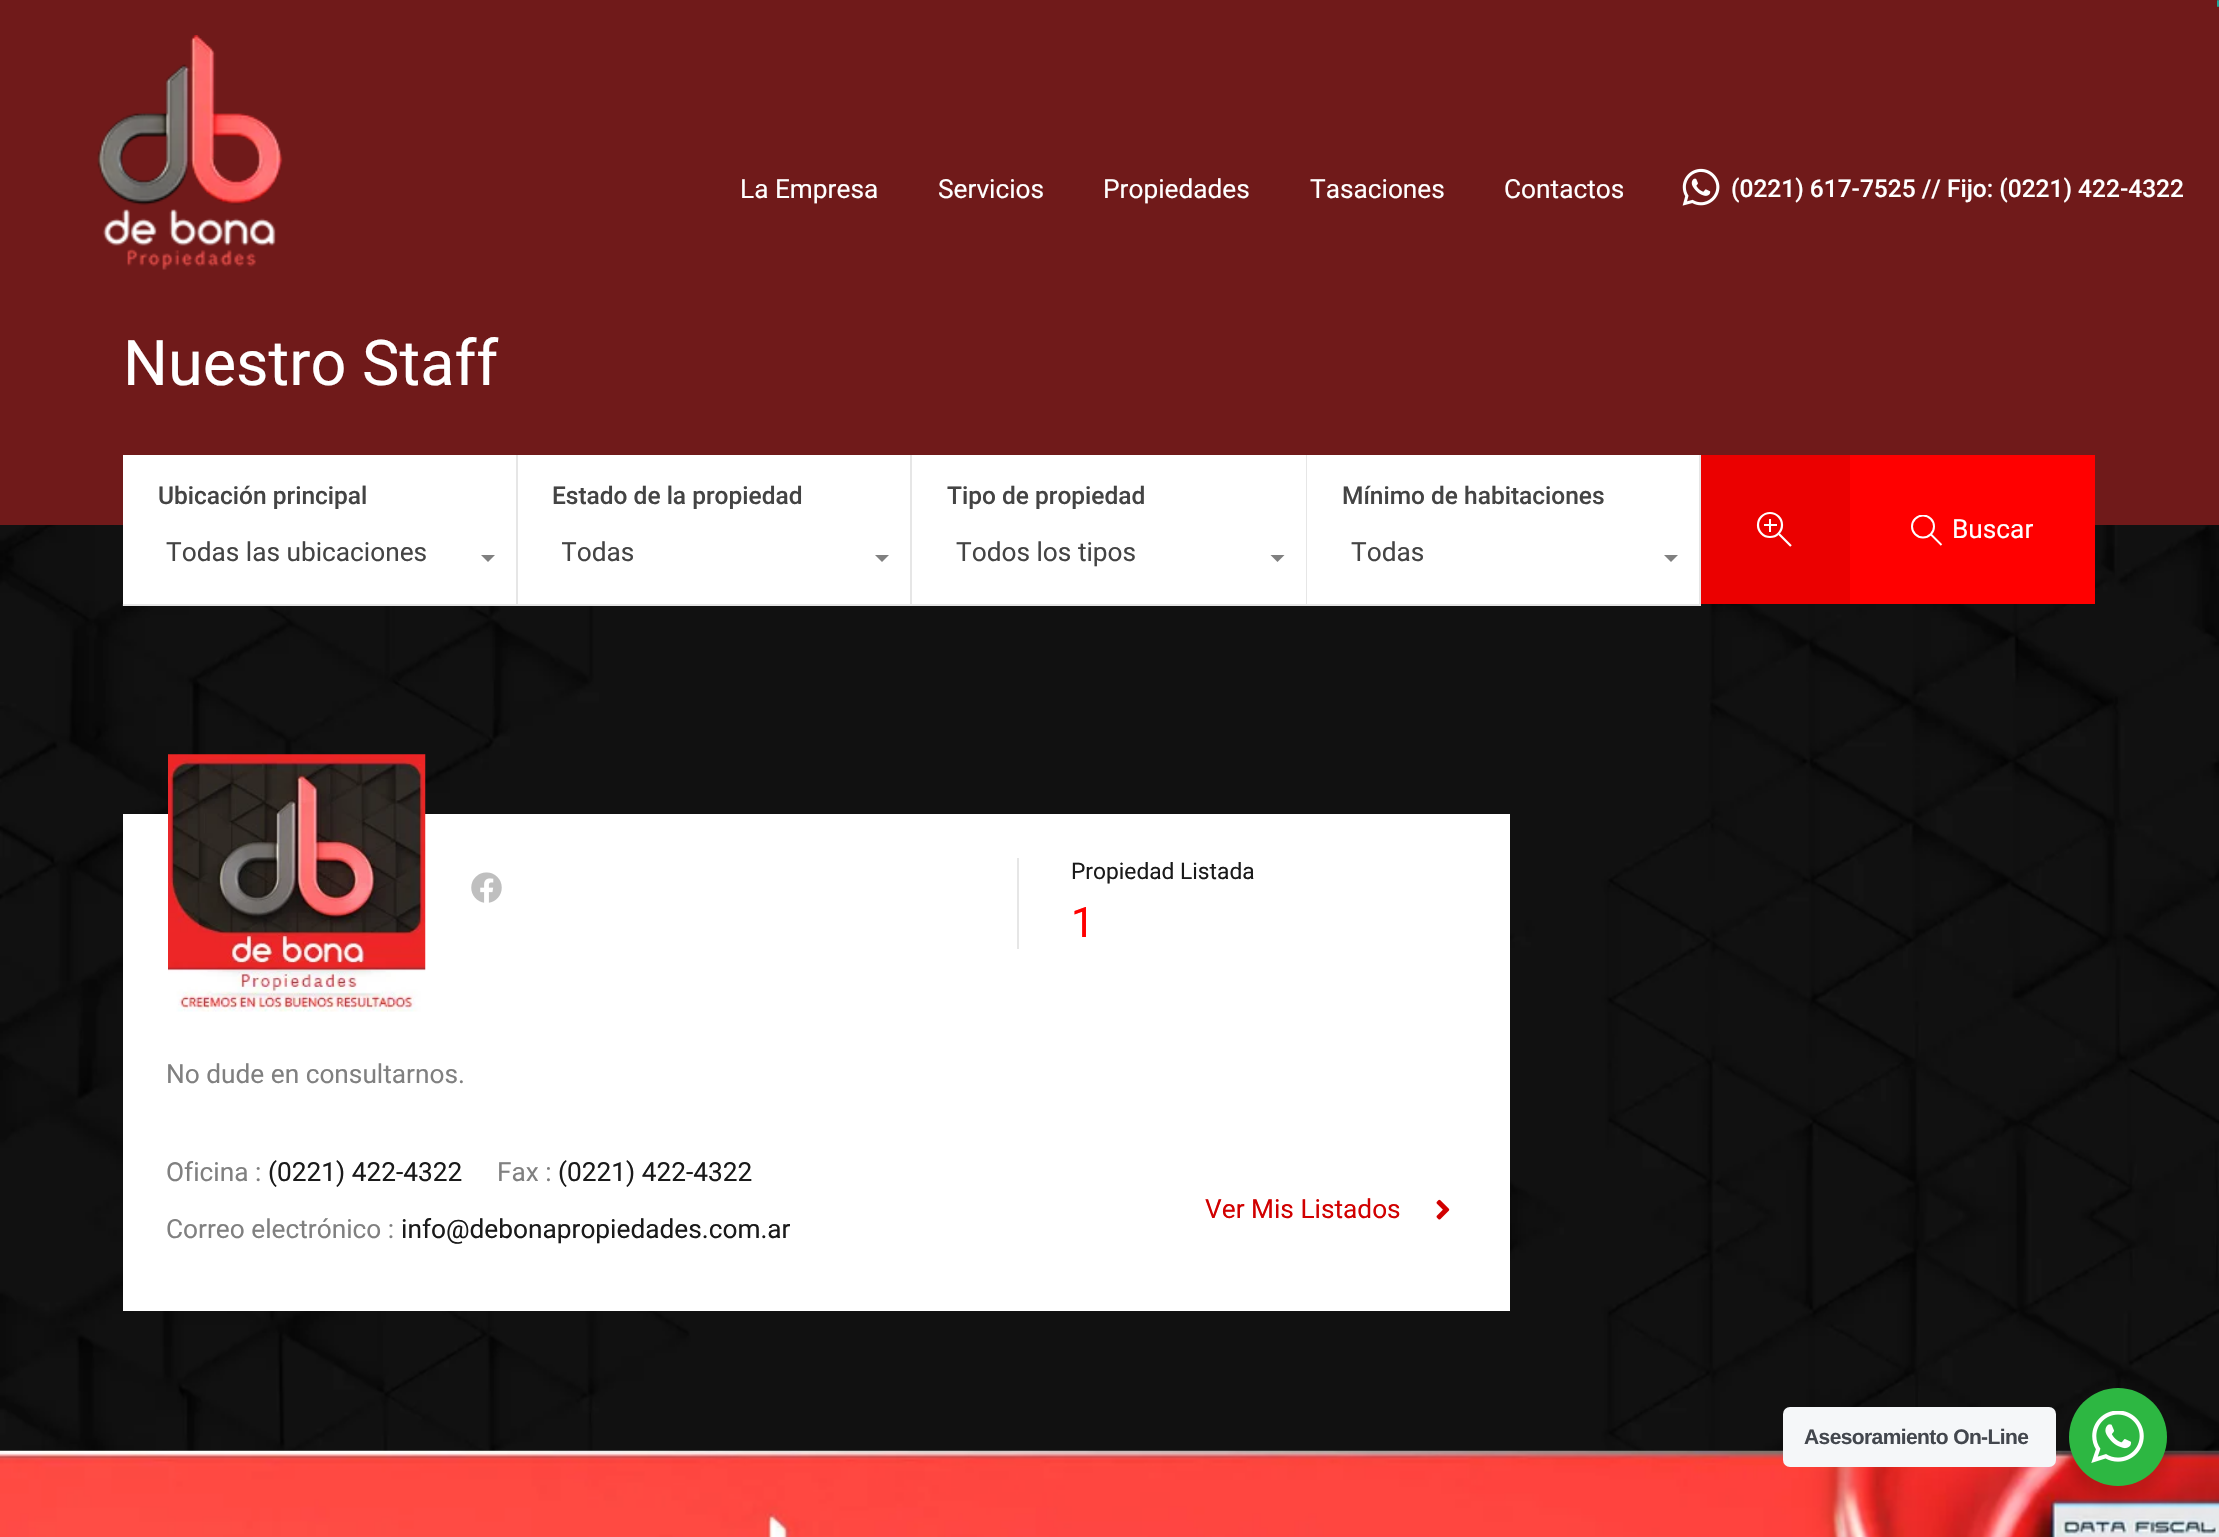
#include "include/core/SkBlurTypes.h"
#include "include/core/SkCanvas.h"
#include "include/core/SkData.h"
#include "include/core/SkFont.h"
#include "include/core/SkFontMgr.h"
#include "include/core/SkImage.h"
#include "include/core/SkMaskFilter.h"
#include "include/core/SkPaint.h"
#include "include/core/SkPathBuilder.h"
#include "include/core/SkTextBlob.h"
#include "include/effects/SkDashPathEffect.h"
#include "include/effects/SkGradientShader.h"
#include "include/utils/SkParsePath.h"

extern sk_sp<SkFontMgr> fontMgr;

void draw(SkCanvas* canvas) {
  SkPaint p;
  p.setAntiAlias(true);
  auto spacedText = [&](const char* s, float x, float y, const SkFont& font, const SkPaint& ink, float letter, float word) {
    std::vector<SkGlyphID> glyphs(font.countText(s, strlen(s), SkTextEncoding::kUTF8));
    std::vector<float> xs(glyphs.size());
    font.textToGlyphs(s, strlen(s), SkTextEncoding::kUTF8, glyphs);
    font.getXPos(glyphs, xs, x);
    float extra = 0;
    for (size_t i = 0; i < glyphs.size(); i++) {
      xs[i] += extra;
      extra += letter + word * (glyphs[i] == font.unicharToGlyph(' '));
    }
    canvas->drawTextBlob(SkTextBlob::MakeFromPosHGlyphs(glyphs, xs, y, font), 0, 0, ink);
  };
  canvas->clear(SK_ColorWHITE);
  canvas->drawImageRect(SkImages::DeferredFromEncodedData(SkData::MakeFromFileName("images/1.png")), SkRect::MakeLTRB(0, 525, 2219, 1451), SkSamplingOptions());
  p.setColor(SkColorSetRGB(112, 26, 26));
  canvas->drawRect(SkRect::MakeLTRB(0, 0, 2219, 525), p);
  p.setStyle(SkPaint::kStroke_Style);
  p.setStrokeWidth(6.7f);
  p.setColor(SkColorSetRGB(30, 166, 154));
  canvas->drawPath(SkPathBuilder().moveTo(2217, 3.5f).lineTo(2219, 3.5f).detach(), p);
  canvas->drawImageRect(SkImages::DeferredFromEncodedData(SkData::MakeFromFileName("images/2.png")), SkRect::MakeLTRB(97, 35, 283, 270), SkSamplingOptions());
  canvas->drawImageRect(SkImages::DeferredFromEncodedData(SkData::MakeFromFileName("images/3.png")), SkRect::MakeLTRB(1682, 168, 1720, 206), SkSamplingOptions());
  p.setStyle(SkPaint::kFill_Style);
  p.setColor(SK_ColorWHITE);
  canvas->drawRect(SkRect::MakeLTRB(123, 455, 1701, 606), p);
  p.setColor(SkColorSetRGB(230, 230, 230));
  canvas->drawPath(SkPathBuilder().moveTo(518, 455).lineTo(518, 606).lineTo(516, 604).lineTo(516, 455).close().detach(), p);
  p.setColor(SkColorSetARGB(51, 128, 128, 128));
  canvas->drawPath(SkPathBuilder().moveTo(518, 606).lineTo(122, 606).lineTo(122, 604).lineTo(516, 604).close().detach(), p);
  p.setColor(SkColorSetRGB(128, 128, 128));
  canvas->drawPath(SkPathBuilder().moveTo(481, 555).lineTo(495, 555).lineTo(488, 562).close().detach(), p);
  p.setColor(SkColorSetRGB(230, 230, 230));
  canvas->drawPath(SkPathBuilder().moveTo(912, 455).lineTo(912, 606).lineTo(910, 604).lineTo(910, 455).close().detach(), p);
  p.setColor(SkColorSetARGB(51, 128, 128, 128));
  canvas->drawPath(SkPathBuilder().moveTo(912, 606).lineTo(518, 606).lineTo(518, 604).lineTo(910, 604).close().detach(), p);
  p.setColor(SkColorSetRGB(128, 128, 128));
  canvas->drawPath(SkPathBuilder().moveTo(875, 555).lineTo(889, 555).lineTo(882, 562).close().detach(), p);
  p.setColor(SkColorSetRGB(230, 230, 230));
  canvas->drawPath(SkPathBuilder().moveTo(1307, 455).lineTo(1307, 606).lineTo(1306, 604).lineTo(1306, 455).close().detach(), p);
  p.setColor(SkColorSetARGB(51, 128, 128, 128));
  canvas->drawPath(SkPathBuilder().moveTo(1307, 606).lineTo(912, 606).lineTo(912, 604).lineTo(1306, 604).close().detach(), p);
  p.setColor(SkColorSetRGB(128, 128, 128));
  canvas->drawPath(SkPathBuilder().moveTo(1270.5f, 555).lineTo(1284.5f, 555).lineTo(1277.5f, 562).close().detach(), p);
  p.setColor(SkColorSetRGB(230, 230, 230));
  canvas->drawPath(SkPathBuilder().moveTo(1701, 455).lineTo(1701, 606).lineTo(1699, 604).lineTo(1699, 455).close().detach(), p);
  p.setColor(SkColorSetARGB(51, 128, 128, 128));
  canvas->drawPath(SkPathBuilder().moveTo(1701, 606).lineTo(1307, 606).lineTo(1307, 604).lineTo(1699, 604).close().detach(), p);
  p.setColor(SkColorSetRGB(128, 128, 128));
  canvas->drawPath(SkPathBuilder().moveTo(1664, 555).lineTo(1678, 555).lineTo(1671, 562).close().detach(), p);
  p.setColor(SkColorSetRGB(235, 0, 0));
  canvas->drawRect(SkRect::MakeLTRB(1701, 455, 1850, 604), p);
  p.setStyle(SkPaint::kStroke_Style);
  p.setStrokeWidth(2.2f);
  p.setColor(SK_ColorWHITE);
  canvas->drawCircle(1770, 525, 12, p);
  p.setStrokeJoin(SkPaint::kRound_Join);
  canvas->drawPath(SkPathBuilder().moveTo(1779, 534).lineTo(1791, 546).detach(), p);
  p.setStyle(SkPaint::kFill_Style);
  canvas->drawRect(SkRect::MakeLTRB(1769, 519, 1771, 532), p);
  canvas->drawRect(SkRect::MakeLTRB(1764, 524, 1777, 526), p);
  p.setColor(SkColorSetRGB(255, 0, 0));
  canvas->drawRect(SkRect::MakeLTRB(1850, 455, 2095, 604), p);
  canvas->save();
  canvas->clipRect(SkRect::MakeLTRB(1911, 515, 1943, 546));
  p.setStyle(SkPaint::kStroke_Style);
  p.setStrokeWidth(2);
  p.setStrokeJoin(SkPaint::kMiter_Join);
  p.setColor(SK_ColorWHITE);
  canvas->drawCircle(1923, 526.5f, 11, p);
  canvas->restore();
  p.setStrokeJoin(SkPaint::kRound_Join);
  canvas->drawPath(SkPathBuilder().moveTo(1930.5f, 534).lineTo(1941.5f, 545).detach(), p);
  p.setStyle(SkPaint::kFill_Style);
  canvas->drawRect(SkRect::MakeLTRB(123, 814, 1510, 1311), p);
  canvas->drawImageRect(SkImages::DeferredFromEncodedData(SkData::MakeFromFileName("images/4.png")), SkRect::MakeLTRB(168, 754, 426, 1012), SkSamplingOptions());
  canvas->drawImageRect(SkImages::DeferredFromEncodedData(SkData::MakeFromFileName("images/5.png")), SkRect::MakeLTRB(471, 872, 502, 903), SkSamplingOptions());
  p.setColor(SkColorSetRGB(230, 230, 230));
  canvas->drawRect(SkRect::MakeLTRB(1017, 858, 1019, 949), p);
  canvas->drawImageRect(SkImages::DeferredFromEncodedData(SkData::MakeFromFileName("images/6.png")), SkRect::MakeLTRB(1436, 1199, 1450, 1220), SkSamplingOptions());
  canvas->drawImageRect(SkImages::DeferredFromEncodedData(SkData::MakeFromFileName("images/7.png")), SkRect::MakeLTRB(0, 1450, 2219, 1537), SkSamplingOptions());
  p.setColor(SkColorSetARGB(36, 0, 0, 0));
  p.setMaskFilter(SkMaskFilter::MakeBlur(kNormal_SkBlurStyle, 7));
  canvas->drawRoundRect(SkRect::MakeLTRB(2065, 1395, 2170, 1500), 52.5f, 52.5f, p);
  p.setMaskFilter(nullptr);
  p.setColor(SkColorSetRGB(245, 247, 249));
  canvas->drawRoundRect(SkRect::MakeLTRB(1783, 1407, 2056, 1467), 7, 7, p);
  p.setColor(SkColorSetRGB(45, 183, 66));
  canvas->drawCircle(2118, 1437, 49, p);
  canvas->drawImageRect(SkImages::DeferredFromEncodedData(SkData::MakeFromFileName("images/8.png")), SkRect::MakeLTRB(2091, 1411, 2144, 1463), SkSamplingOptions());
  SkFont font1(fontMgr->matchFamilyStyle("Roboto", SkFontStyle::Normal()), 26.25f);
  font1.setSubpixel(true);
  p.setColor(SK_ColorWHITE);
  canvas->drawString("La Empresa", 740, 198, font1, p);
  canvas->drawString("Servicios", 938, 198, font1, p);
  canvas->drawString("Propiedades", 1103, 198, font1, p);
  canvas->drawString("Tasaciones", 1310, 198, font1, p);
  canvas->drawString("Contactos", 1504, 198, font1, p);
  SkFont font2(fontMgr->matchFamilyStyle("Roboto", SkFontStyle(500, SkFontStyle::kNormal_Width, SkFontStyle::kUpright_Slant)), 24.5f);
  font2.setSubpixel(true);
  canvas->drawString("(0221) 617-7525 // Fijo: (0221) 422-4322", 1731, 197, font2, p);
  SkFont font3(fontMgr->matchFamilyStyle("Roboto", SkFontStyle::Normal()), 63);
  font3.setSubpixel(true);
  canvas->drawString("Nuestro Staff", 123, 385, font3, p);
  p.setColor(SkColorSetRGB(68, 68, 68));
  canvas->drawString("Ubicación principal", 158, 504, font2, p);
  canvas->drawString("Todas las ubicaciones", 166, 561, font1, p);
  canvas->drawString("Estado de la propiedad", 552, 504, font2, p);
  canvas->save();
  canvas->clipRect(SkRect::MakeLTRB(562, 537, 823, 569));
  canvas->drawString("Todas", 561, 561, font1, p);
  canvas->restore();
  canvas->drawString("Tipo de propiedad", 947, 504, font2, p);
  canvas->drawString("Todos los tipos", 956, 561, font1, p);
  canvas->drawString("Mínimo de habitaciones", 1342, 504, font2, p);
  canvas->drawString("Todas", 1351, 561, font1, p);
  p.setColor(SK_ColorWHITE);
  canvas->drawString("Buscar", 1952, 538, font1, p);
  SkFont font4(fontMgr->matchFamilyStyle("Roboto", SkFontStyle::Normal()), 22.75f);
  font4.setSubpixel(true);
  p.setColor(SkColorSetRGB(26, 26, 26));
  canvas->drawString("Propiedad Listada", 1071, 879, font4, p);
  SkFont font5(fontMgr->matchFamilyStyle("Roboto", SkFontStyle::Normal()), 42);
  font5.setSubpixel(true);
  p.setColor(SkColorSetRGB(255, 0, 0));
  canvas->drawString("1", 1071, 937, font5, p);
  p.setColor(SkColorSetRGB(128, 128, 128));
  canvas->drawString("No dude en consultarnos.", 166, 1083, font1, p);
  canvas->drawString("Oficina :", 166, 1181, font1, p);
  p.setColor(SkColorSetRGB(26, 26, 26));
  canvas->drawString("(0221) 422-4322", 268, 1181, font1, p);
  p.setColor(SkColorSetRGB(128, 128, 128));
  canvas->drawString("Fax :", 497, 1181, font1, p);
  p.setColor(SkColorSetRGB(26, 26, 26));
  canvas->drawString("(0221) 422-4322", 558, 1181, font1, p);
  p.setColor(SkColorSetRGB(128, 128, 128));
  canvas->drawString("Correo electrónico :", 166, 1238, font1, p);
  p.setColor(SkColorSetRGB(26, 26, 26));
  canvas->drawString("info@debonapropiedades.com.ar", 401, 1238, font1, p);
  p.setColor(SkColorSetRGB(209, 0, 0));
  canvas->drawString("Ver Mis Listados", 1205, 1218, font1, p);
  SkFont font6(fontMgr->matchFamilyStyle("Liberation Sans", SkFontStyle::Bold()), 21);
  font6.setSubpixel(true);
  p.setColor(SkColorSetRGB(67, 71, 78));
  spacedText("Asesoramiento On-Line", 1804, 1444, font6, p, -0.6f, 0);
}
